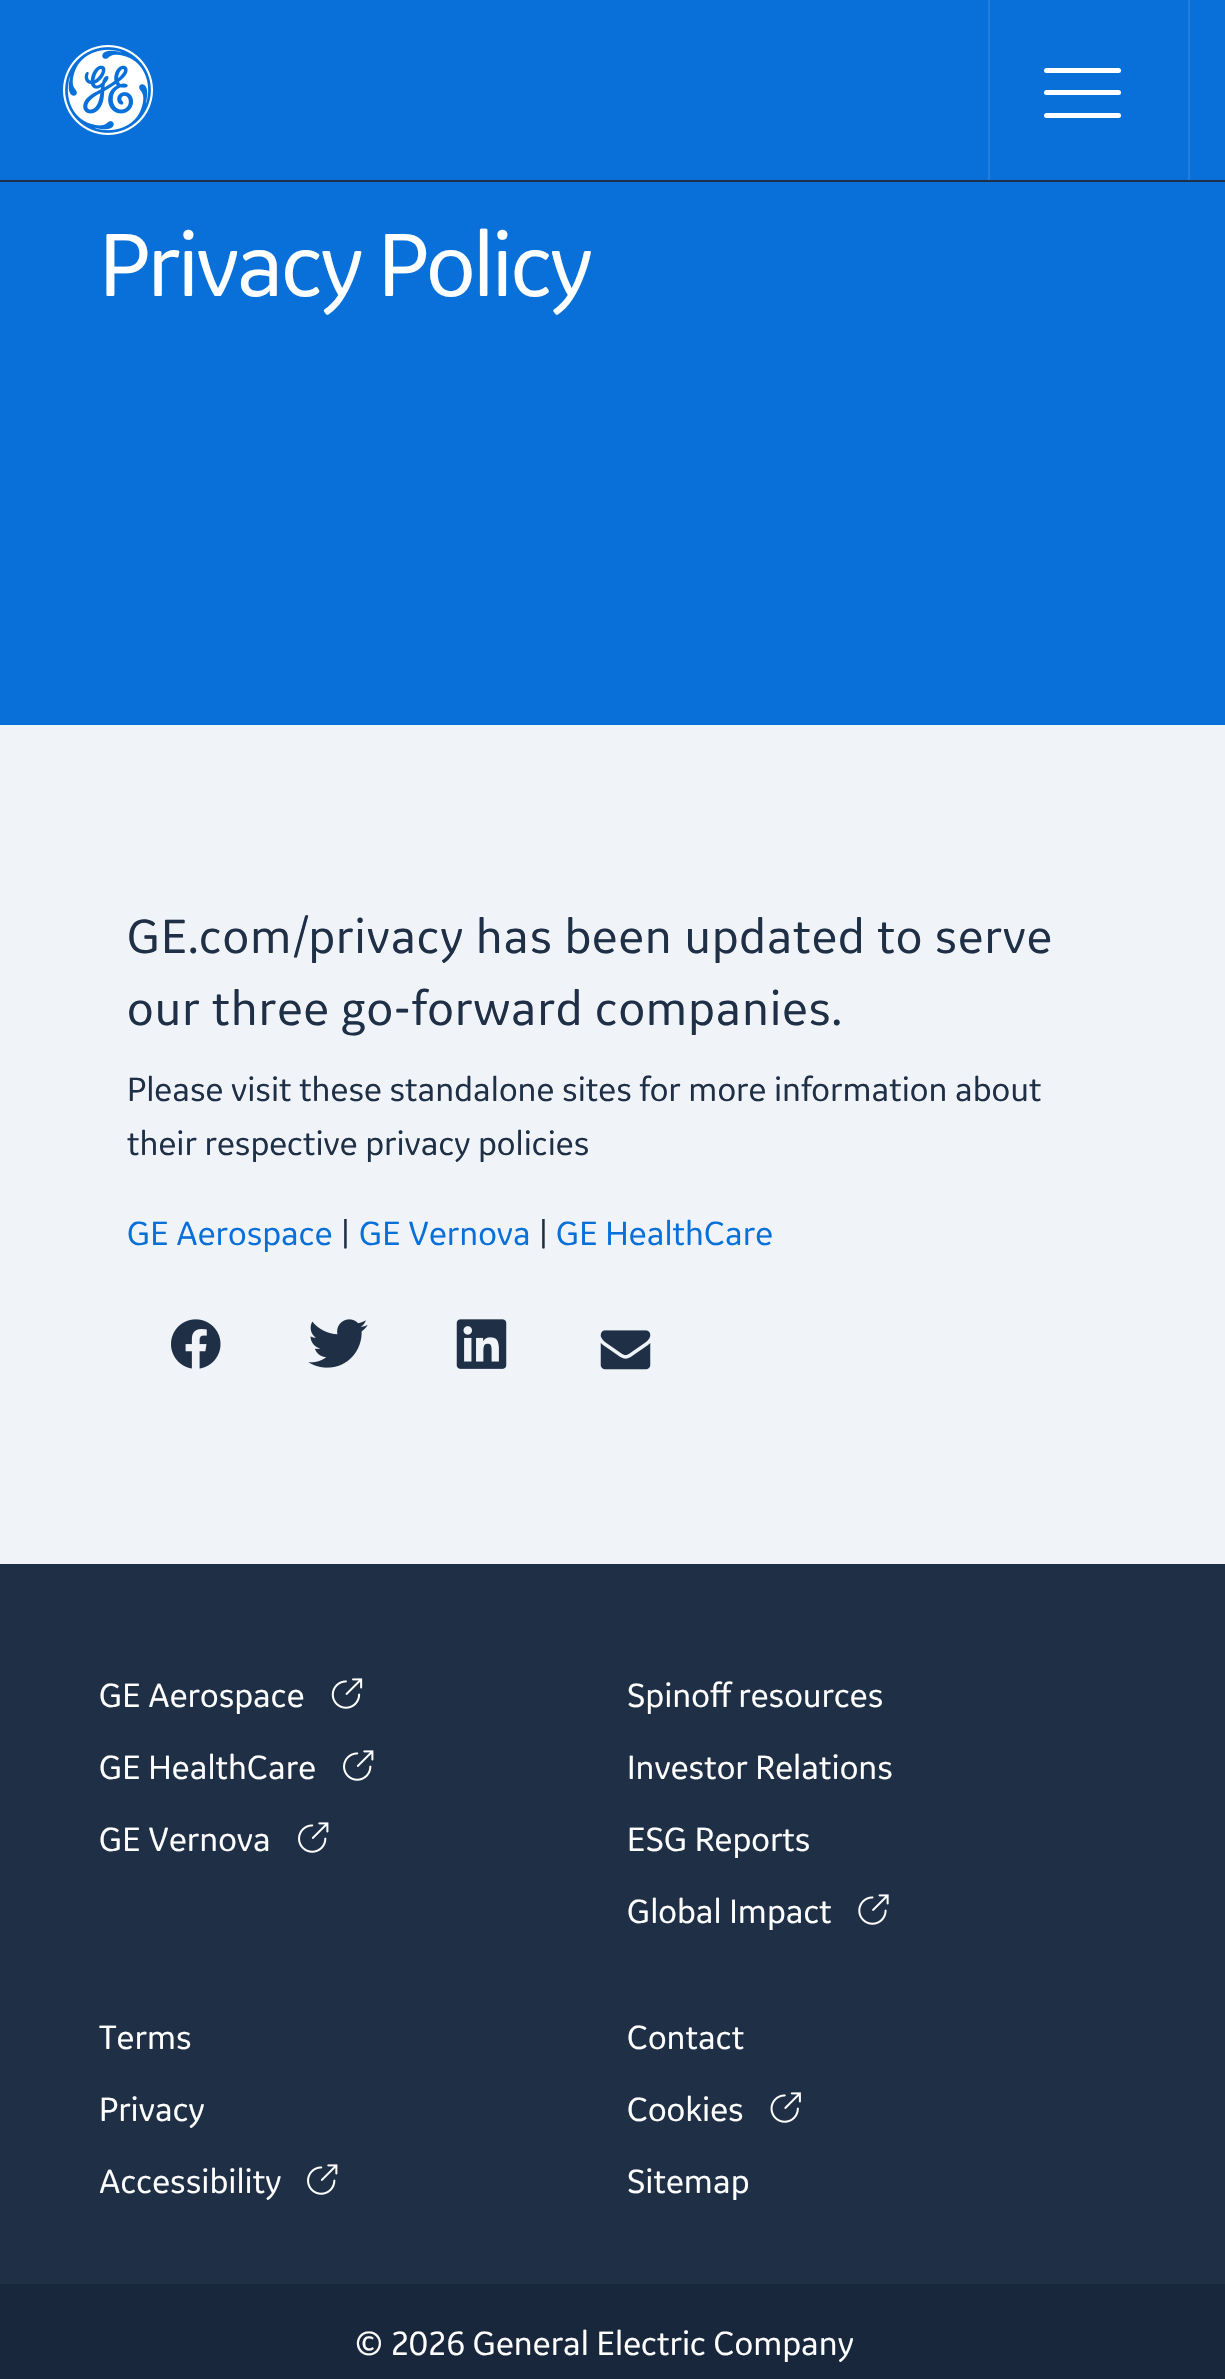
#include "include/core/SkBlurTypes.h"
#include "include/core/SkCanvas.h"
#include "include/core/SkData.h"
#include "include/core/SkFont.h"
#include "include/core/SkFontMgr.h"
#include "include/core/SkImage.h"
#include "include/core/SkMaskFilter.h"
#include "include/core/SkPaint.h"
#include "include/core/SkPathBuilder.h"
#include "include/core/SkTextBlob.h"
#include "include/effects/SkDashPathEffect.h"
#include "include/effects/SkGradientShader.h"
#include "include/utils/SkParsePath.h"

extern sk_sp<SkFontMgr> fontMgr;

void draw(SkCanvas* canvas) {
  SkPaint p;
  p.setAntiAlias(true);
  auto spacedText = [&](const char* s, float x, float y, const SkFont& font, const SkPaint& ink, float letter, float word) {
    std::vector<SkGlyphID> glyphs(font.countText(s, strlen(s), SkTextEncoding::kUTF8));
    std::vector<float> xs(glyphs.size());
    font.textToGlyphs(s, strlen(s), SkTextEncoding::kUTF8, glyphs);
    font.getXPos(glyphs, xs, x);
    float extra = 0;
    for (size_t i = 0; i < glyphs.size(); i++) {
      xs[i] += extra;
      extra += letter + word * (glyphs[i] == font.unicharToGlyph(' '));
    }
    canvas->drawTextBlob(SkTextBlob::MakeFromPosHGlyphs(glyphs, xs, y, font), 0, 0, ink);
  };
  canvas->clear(SkColorSetRGB(240, 243, 247));
  p.setColor(SkColorSetRGB(8, 112, 216));
  canvas->drawRect(SkRect::MakeLTRB(0, 0, 1225, 180), p);
  p.setColor(SkColorSetRGB(30, 47, 70));
  canvas->drawRect(SkRect::MakeLTRB(0, 180, 1225, 182), p);
  canvas->drawImageRect(SkImages::DeferredFromEncodedData(SkData::MakeFromFileName("images/1.png")), SkRect::MakeLTRB(63, 45, 153, 135), SkSamplingOptions());
  p.setColor(SkColorSetRGB(33, 126, 220));
  canvas->drawRect(SkRect::MakeLTRB(1188, 0, 1190, 180), p);
  canvas->drawRect(SkRect::MakeLTRB(988, 0, 990, 180), p);
  p.setColor(SK_ColorWHITE);
  canvas->drawRoundRect(SkRect::MakeLTRB(1044, 68, 1121, 73), 2.5f, 2.5f, p);
  canvas->drawRoundRect(SkRect::MakeLTRB(1044, 90, 1121, 95), 2.5f, 2.5f, p);
  canvas->drawRoundRect(SkRect::MakeLTRB(1044, 113, 1121, 118), 2.5f, 2.5f, p);
  p.setColor(SkColorSetRGB(8, 112, 216));
  canvas->drawRect(SkRect::MakeLTRB(0, 182, 1225, 725), p);
  canvas->drawImageRect(SkImages::DeferredFromEncodedData(SkData::MakeFromFileName("images/2.png")), SkRect::MakeLTRB(171, 1319, 221, 1369), SkSamplingOptions());
  canvas->drawImageRect(SkImages::DeferredFromEncodedData(SkData::MakeFromFileName("images/3.png")), SkRect::MakeLTRB(308, 1319, 368, 1368), SkSamplingOptions());
  canvas->drawImageRect(SkImages::DeferredFromEncodedData(SkData::MakeFromFileName("images/4.png")), SkRect::MakeLTRB(456, 1319, 507, 1369), SkSamplingOptions());
  canvas->drawImageRect(SkImages::DeferredFromEncodedData(SkData::MakeFromFileName("images/5.png")), SkRect::MakeLTRB(600, 1330, 651, 1370), SkSamplingOptions());
  p.setColor(SkColorSetRGB(30, 47, 70));
  canvas->drawRect(SkRect::MakeLTRB(0, 1564, 1225, 2284), p);
  canvas->drawImageRect(SkImages::DeferredFromEncodedData(SkData::MakeFromFileName("images/6.png")), SkRect::MakeLTRB(331, 1678, 363, 1709), SkSamplingOptions());
  canvas->drawImageRect(SkImages::DeferredFromEncodedData(SkData::MakeFromFileName("images/7.png")), SkRect::MakeLTRB(343, 1750, 374, 1781), SkSamplingOptions());
  canvas->drawImageRect(SkImages::DeferredFromEncodedData(SkData::MakeFromFileName("images/7.png")), SkRect::MakeLTRB(298, 1822, 329, 1853), SkSamplingOptions());
  canvas->drawImageRect(SkImages::DeferredFromEncodedData(SkData::MakeFromFileName("images/8.png")), SkRect::MakeLTRB(858, 1894, 889, 1925), SkSamplingOptions());
  canvas->drawImageRect(SkImages::DeferredFromEncodedData(SkData::MakeFromFileName("images/7.png")), SkRect::MakeLTRB(307, 2164, 338, 2195), SkSamplingOptions());
  canvas->drawImageRect(SkImages::DeferredFromEncodedData(SkData::MakeFromFileName("images/9.png")), SkRect::MakeLTRB(770, 2092, 801, 2123), SkSamplingOptions());
  p.setColor(SkColorSetRGB(25, 39, 60));
  canvas->drawRect(SkRect::MakeLTRB(0, 2284, 1225, 2379), p);
  SkFont font1(fontMgr->matchFamilyStyle("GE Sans", SkFontStyle::Normal()), 96);
  font1.setSubpixel(true);
  p.setColor(SK_ColorWHITE);
  spacedText("Privacy Policy", 99, 296, font1, p, -2.9f, 0);
  SkFont font2(fontMgr->matchFamilyStyle("GE Sans", SkFontStyle::Normal()), 51.4f);
  font2.setSubpixel(true);
  p.setColor(SkColorSetRGB(30, 47, 70));
  spacedText("GE.com/privacy has been updated to serve", 127, 953, font2, p, 0.8f, 0);
  spacedText("our three go-forward companies.", 127, 1025, font2, p, 0.8f, 0);
  SkFont font3(fontMgr->matchFamilyStyle("GE Sans", SkFontStyle::Normal()), 36);
  font3.setSubpixel(true);
  canvas->drawString("Please visit these standalone sites for more information about", 127, 1101, font3, p);
  canvas->drawString("their respective privacy policies", 127, 1155, font3, p);
  p.setColor(SkColorSetRGB(8, 112, 216));
  canvas->drawString("GE Aerospace", 127, 1245, font3, p);
  p.setColor(SkColorSetRGB(30, 47, 70));
  canvas->drawString("|", 340, 1245, font3, p);
  p.setColor(SkColorSetRGB(8, 112, 216));
  canvas->drawString("GE Vernova", 359, 1245, font3, p);
  p.setColor(SkColorSetRGB(30, 47, 70));
  canvas->drawString("|", 538, 1245, font3, p);
  p.setColor(SkColorSetRGB(8, 112, 216));
  canvas->drawString("GE HealthCare", 556, 1245, font3, p);
  p.setColor(SK_ColorWHITE);
  canvas->drawString("GE Aerospace", 99, 1707, font3, p);
  canvas->drawString("GE HealthCare", 99, 1779, font3, p);
  canvas->drawString("GE Vernova", 99, 1851, font3, p);
  canvas->drawString("Spinoff resources", 627, 1707, font3, p);
  canvas->drawString("Investor Relations", 627, 1779, font3, p);
  canvas->drawString("ESG Reports", 627, 1851, font3, p);
  canvas->drawString("Global Impact", 627, 1923, font3, p);
  canvas->drawString("Terms", 99, 2049, font3, p);
  canvas->drawString("Privacy", 99, 2121, font3, p);
  canvas->drawString("Accessibility", 99, 2193, font3, p);
  canvas->drawString("Contact", 627, 2049, font3, p);
  canvas->drawString("Cookies", 627, 2121, font3, p);
  canvas->drawString("Sitemap", 627, 2193, font3, p);
  canvas->drawString("© 2026 General Electric Company", 355, 2355, font3, p);
}
